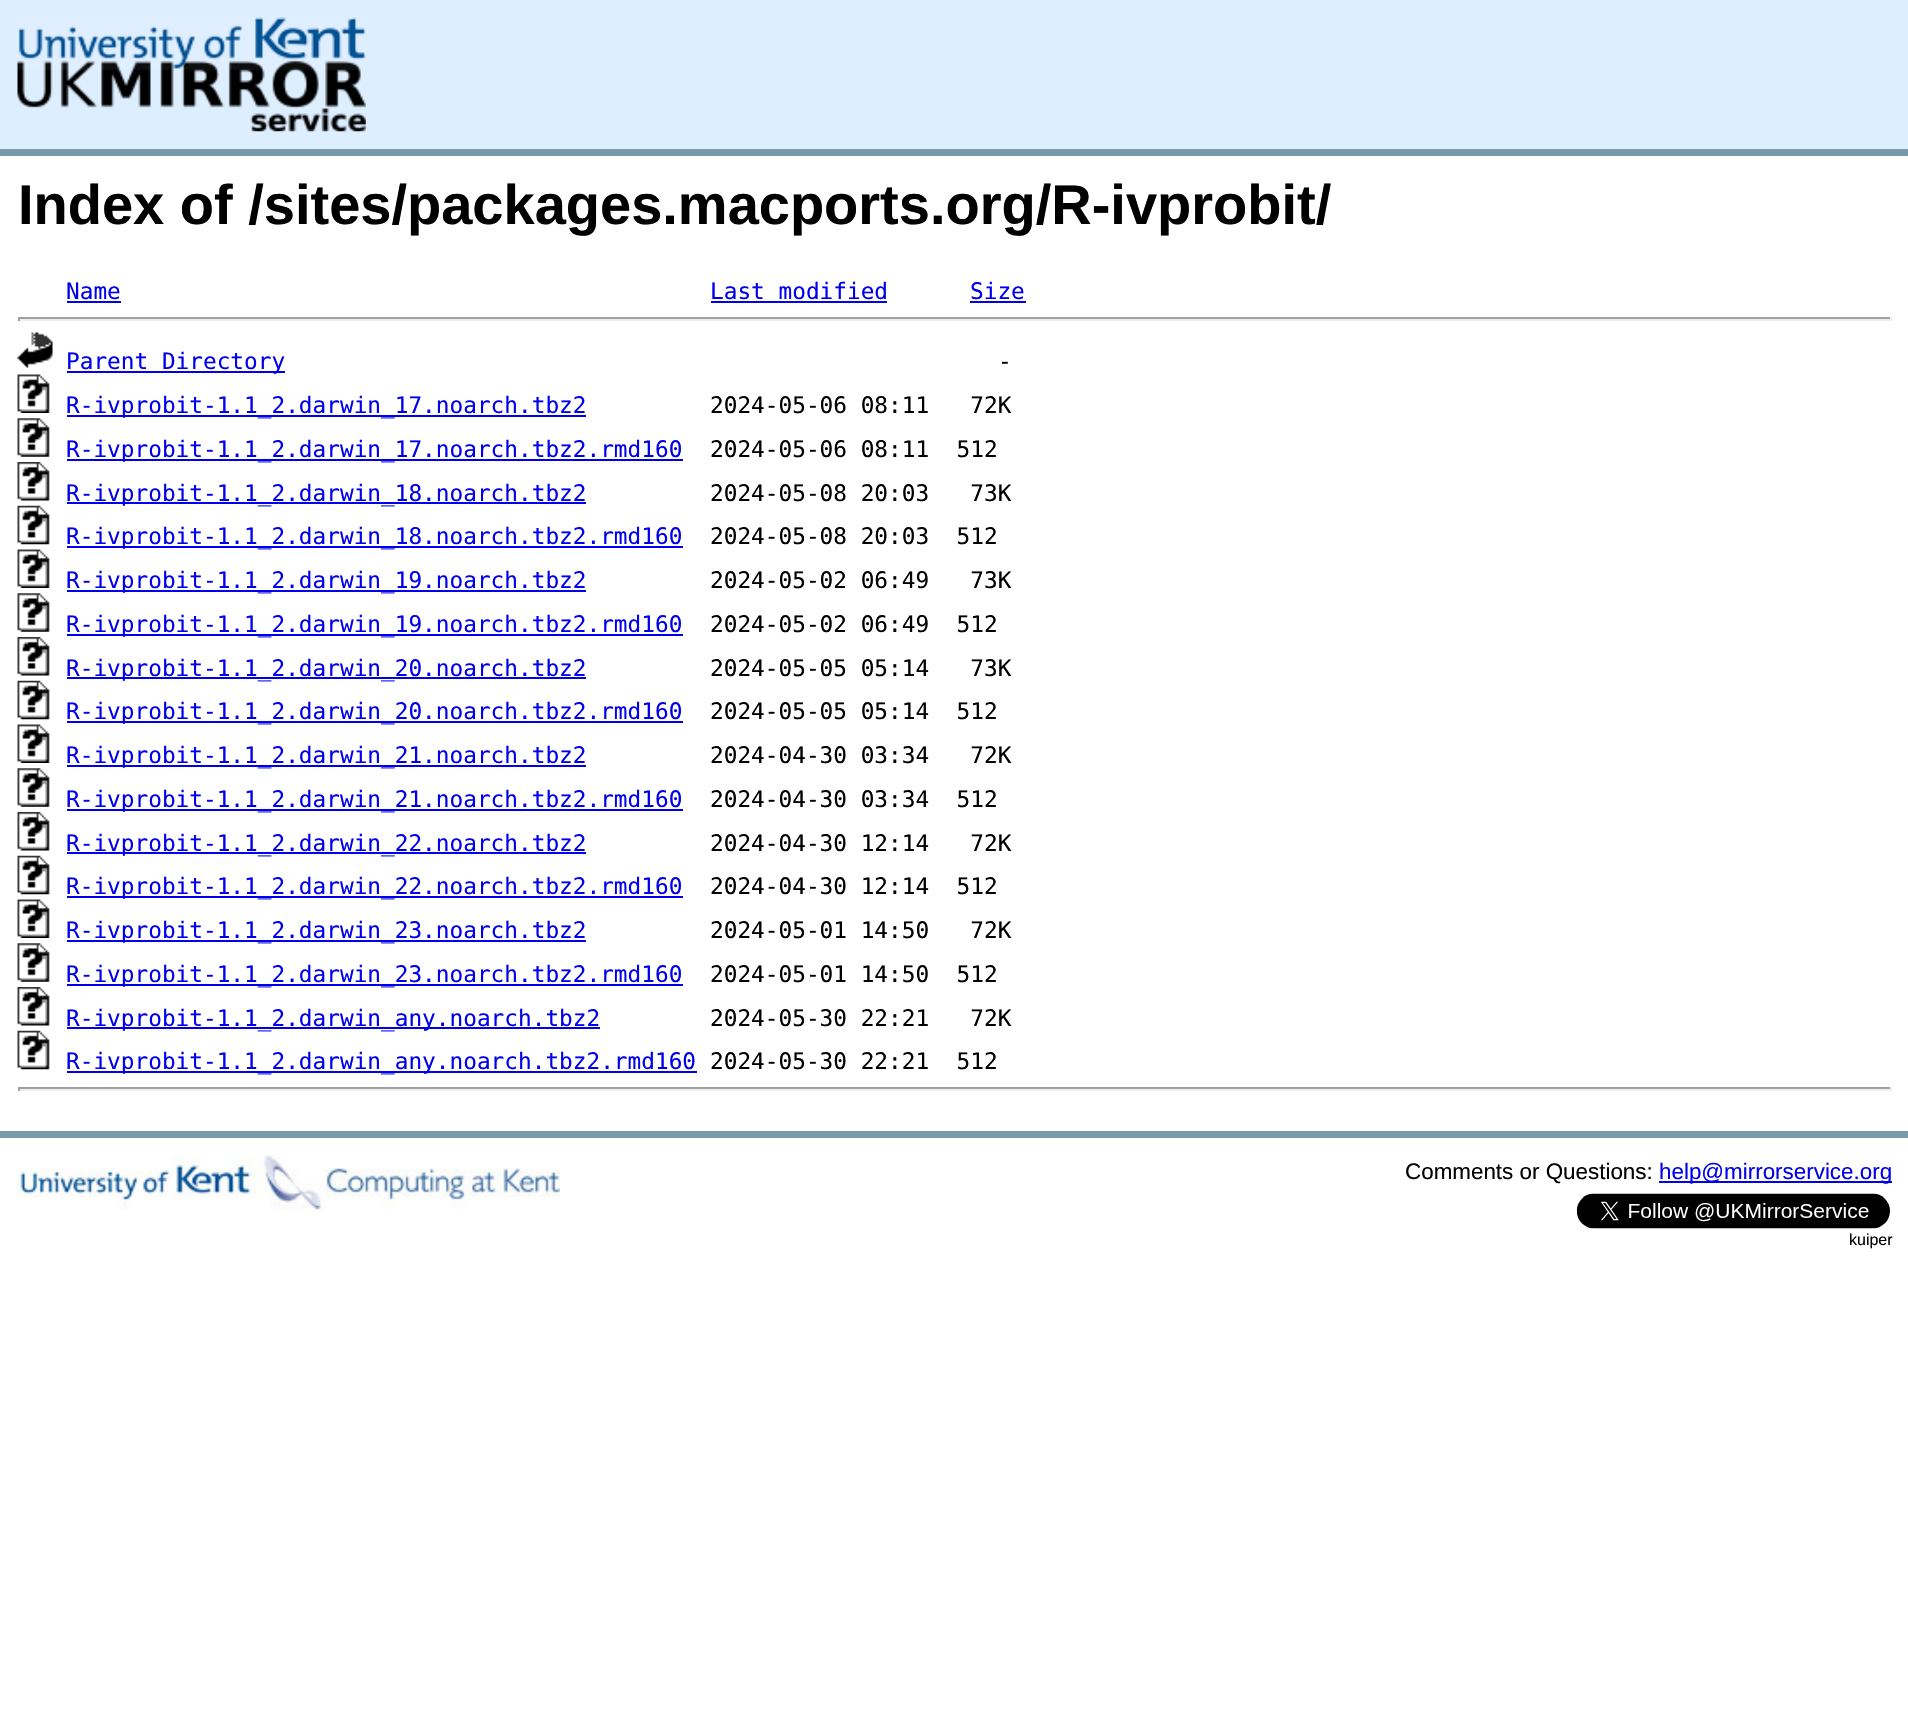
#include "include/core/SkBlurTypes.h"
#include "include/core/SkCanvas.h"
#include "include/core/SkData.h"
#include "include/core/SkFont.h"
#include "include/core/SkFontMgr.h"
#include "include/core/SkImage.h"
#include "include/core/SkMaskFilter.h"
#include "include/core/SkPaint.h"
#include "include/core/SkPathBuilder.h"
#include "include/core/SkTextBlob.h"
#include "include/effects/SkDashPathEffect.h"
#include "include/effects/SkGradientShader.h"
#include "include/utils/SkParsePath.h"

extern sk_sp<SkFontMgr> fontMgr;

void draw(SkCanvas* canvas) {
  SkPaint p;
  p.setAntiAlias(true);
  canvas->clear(SK_ColorWHITE);
  p.setColor(SkColorSetRGB(221, 238, 255));
  canvas->drawRect(SkRect::MakeLTRB(0, 0, 1908, 149), p);
  p.setColor(SkColorSetRGB(119, 153, 170));
  canvas->drawRect(SkRect::MakeLTRB(0, 149, 1908, 156), p);
  canvas->drawImageRect(SkImages::DeferredFromEncodedData(SkData::MakeFromFileName("images/1.png")), SkRect::MakeLTRB(17, 17, 366, 132), SkSamplingOptions());
  p.setColor(SkColorSetRGB(0, 0, 238));
  canvas->drawRect(SkRect::MakeLTRB(67, 301, 121, 303), p);
  canvas->drawRect(SkRect::MakeLTRB(711, 301, 887, 303), p);
  canvas->drawRect(SkRect::MakeLTRB(970, 301, 1026, 303), p);
  p.setColor(SkColorSetRGB(159, 159, 159));
  canvas->drawRect(SkRect::MakeLTRB(18, 317, 1892, 319), p);
  p.setColor(SkColorSetRGB(238, 238, 238));
  canvas->drawRect(SkRect::MakeLTRB(1890, 317, 1892, 321), p);
  canvas->drawRect(SkRect::MakeLTRB(18, 319, 1892, 321), p);
  p.setColor(SkColorSetRGB(159, 159, 159));
  canvas->drawRect(SkRect::MakeLTRB(18, 317, 20, 321), p);
  canvas->drawImageRect(SkImages::DeferredFromEncodedData(SkData::MakeFromFileName("images/2.png")), SkRect::MakeLTRB(17, 332, 53, 368), SkSamplingOptions());
  p.setColor(SkColorSetRGB(0, 0, 238));
  canvas->drawRect(SkRect::MakeLTRB(67, 371, 285, 373), p);
  canvas->drawImageRect(SkImages::DeferredFromEncodedData(SkData::MakeFromFileName("images/3.png")), SkRect::MakeLTRB(17, 374, 50, 413), SkSamplingOptions());
  canvas->drawRect(SkRect::MakeLTRB(67, 415, 586, 417), p);
  canvas->drawImageRect(SkImages::DeferredFromEncodedData(SkData::MakeFromFileName("images/4.png")), SkRect::MakeLTRB(17, 418, 50, 457), SkSamplingOptions());
  canvas->drawRect(SkRect::MakeLTRB(67, 459, 683, 461), p);
  canvas->drawImageRect(SkImages::DeferredFromEncodedData(SkData::MakeFromFileName("images/5.png")), SkRect::MakeLTRB(17, 462, 50, 501), SkSamplingOptions());
  canvas->drawRect(SkRect::MakeLTRB(67, 502, 586, 504), p);
  canvas->drawImageRect(SkImages::DeferredFromEncodedData(SkData::MakeFromFileName("images/6.png")), SkRect::MakeLTRB(17, 505, 50, 545), SkSamplingOptions());
  canvas->drawRect(SkRect::MakeLTRB(67, 546, 683, 548), p);
  canvas->drawImageRect(SkImages::DeferredFromEncodedData(SkData::MakeFromFileName("images/3.png")), SkRect::MakeLTRB(17, 549, 50, 588), SkSamplingOptions());
  canvas->drawRect(SkRect::MakeLTRB(67, 590, 586, 592), p);
  canvas->drawImageRect(SkImages::DeferredFromEncodedData(SkData::MakeFromFileName("images/4.png")), SkRect::MakeLTRB(17, 593, 50, 632), SkSamplingOptions());
  canvas->drawRect(SkRect::MakeLTRB(67, 634, 683, 636), p);
  canvas->drawImageRect(SkImages::DeferredFromEncodedData(SkData::MakeFromFileName("images/5.png")), SkRect::MakeLTRB(17, 637, 50, 676), SkSamplingOptions());
  canvas->drawRect(SkRect::MakeLTRB(67, 677, 586, 679), p);
  canvas->drawImageRect(SkImages::DeferredFromEncodedData(SkData::MakeFromFileName("images/6.png")), SkRect::MakeLTRB(17, 680, 50, 720), SkSamplingOptions());
  canvas->drawRect(SkRect::MakeLTRB(67, 721, 683, 723), p);
  canvas->drawImageRect(SkImages::DeferredFromEncodedData(SkData::MakeFromFileName("images/3.png")), SkRect::MakeLTRB(17, 724, 50, 763), SkSamplingOptions());
  canvas->drawRect(SkRect::MakeLTRB(67, 765, 586, 767), p);
  canvas->drawImageRect(SkImages::DeferredFromEncodedData(SkData::MakeFromFileName("images/4.png")), SkRect::MakeLTRB(17, 768, 50, 807), SkSamplingOptions());
  canvas->drawRect(SkRect::MakeLTRB(67, 809, 683, 811), p);
  canvas->drawImageRect(SkImages::DeferredFromEncodedData(SkData::MakeFromFileName("images/5.png")), SkRect::MakeLTRB(17, 812, 50, 851), SkSamplingOptions());
  canvas->drawRect(SkRect::MakeLTRB(67, 852, 586, 854), p);
  canvas->drawImageRect(SkImages::DeferredFromEncodedData(SkData::MakeFromFileName("images/6.png")), SkRect::MakeLTRB(17, 855, 50, 895), SkSamplingOptions());
  canvas->drawRect(SkRect::MakeLTRB(67, 896, 683, 898), p);
  canvas->drawImageRect(SkImages::DeferredFromEncodedData(SkData::MakeFromFileName("images/3.png")), SkRect::MakeLTRB(17, 899, 50, 938), SkSamplingOptions());
  canvas->drawRect(SkRect::MakeLTRB(67, 940, 586, 942), p);
  canvas->drawImageRect(SkImages::DeferredFromEncodedData(SkData::MakeFromFileName("images/4.png")), SkRect::MakeLTRB(17, 943, 50, 982), SkSamplingOptions());
  canvas->drawRect(SkRect::MakeLTRB(67, 984, 683, 986), p);
  canvas->drawImageRect(SkImages::DeferredFromEncodedData(SkData::MakeFromFileName("images/5.png")), SkRect::MakeLTRB(17, 987, 50, 1026), SkSamplingOptions());
  canvas->drawRect(SkRect::MakeLTRB(67, 1027, 600, 1029), p);
  canvas->drawImageRect(SkImages::DeferredFromEncodedData(SkData::MakeFromFileName("images/6.png")), SkRect::MakeLTRB(17, 1030, 50, 1070), SkSamplingOptions());
  canvas->drawRect(SkRect::MakeLTRB(67, 1071, 697, 1073), p);
  p.setColor(SkColorSetRGB(159, 159, 159));
  canvas->drawRect(SkRect::MakeLTRB(18, 1087, 1892, 1089), p);
  p.setColor(SkColorSetRGB(238, 238, 238));
  canvas->drawRect(SkRect::MakeLTRB(1890, 1087, 1892, 1091), p);
  canvas->drawRect(SkRect::MakeLTRB(18, 1089, 1892, 1091), p);
  p.setColor(SkColorSetRGB(159, 159, 159));
  canvas->drawRect(SkRect::MakeLTRB(18, 1087, 20, 1091), p);
  p.setColor(SkColorSetRGB(119, 153, 170));
  canvas->drawRect(SkRect::MakeLTRB(0, 1131, 1908, 1138), p);
  canvas->drawImageRect(SkImages::DeferredFromEncodedData(SkData::MakeFromFileName("images/7.png")), SkRect::MakeLTRB(17, 1155, 560, 1210), SkSamplingOptions());
  p.setColor(SkColorSetRGB(0, 0, 238));
  canvas->drawRect(SkRect::MakeLTRB(1659, 1181, 1892, 1183), p);
  canvas->drawImageRect(SkImages::DeferredFromEncodedData(SkData::MakeFromFileName("images/8.png")), SkRect::MakeLTRB(1576, 1193, 1890, 1229), SkSamplingOptions());
  SkFont font1(fontMgr->matchFamilyStyle("Liberation Sans", SkFontStyle::Bold()), 56);
  font1.setSubpixel(true);
  p.setColor(SK_ColorBLACK);
  canvas->drawString("Index of /sites/packages.macports.org/R-ivprobit/", 18, 224, font1, p);
  SkFont font2(fontMgr->matchFamilyStyle("DejaVu Sans Mono", SkFontStyle::Normal()), 22.75f);
  font2.setSubpixel(true);
  p.setColor(SkColorSetRGB(0, 0, 238));
  canvas->drawString("Name", 66, 299, font2, p);
  canvas->drawString("Last modified", 710, 299, font2, p);
  canvas->drawString("Size", 970, 299, font2, p);
  canvas->drawString("Parent Directory", 66, 369, font2, p);
  p.setColor(SK_ColorBLACK);
  canvas->drawString("-", 998, 369, font2, p);
  p.setColor(SkColorSetRGB(0, 0, 238));
  canvas->drawString("R-ivprobit-1.1_2.darwin_17.noarch.tbz2", 66, 413, font2, p);
  p.setColor(SK_ColorBLACK);
  canvas->drawString("2024-05-06 08:11   72K", 710, 413, font2, p);
  p.setColor(SkColorSetRGB(0, 0, 238));
  canvas->drawString("R-ivprobit-1.1_2.darwin_17.noarch.tbz2.rmd160", 66, 457, font2, p);
  p.setColor(SK_ColorBLACK);
  canvas->drawString("2024-05-06 08:11  512", 710, 457, font2, p);
  p.setColor(SkColorSetRGB(0, 0, 238));
  canvas->drawString("R-ivprobit-1.1_2.darwin_18.noarch.tbz2", 66, 501, font2, p);
  p.setColor(SK_ColorBLACK);
  canvas->drawString("2024-05-08 20:03   73K", 710, 501, font2, p);
  p.setColor(SkColorSetRGB(0, 0, 238));
  canvas->drawString("R-ivprobit-1.1_2.darwin_18.noarch.tbz2.rmd160", 66, 544, font2, p);
  p.setColor(SK_ColorBLACK);
  canvas->drawString("2024-05-08 20:03  512", 710, 544, font2, p);
  p.setColor(SkColorSetRGB(0, 0, 238));
  canvas->drawString("R-ivprobit-1.1_2.darwin_19.noarch.tbz2", 66, 588, font2, p);
  p.setColor(SK_ColorBLACK);
  canvas->drawString("2024-05-02 06:49   73K", 710, 588, font2, p);
  p.setColor(SkColorSetRGB(0, 0, 238));
  canvas->drawString("R-ivprobit-1.1_2.darwin_19.noarch.tbz2.rmd160", 66, 632, font2, p);
  p.setColor(SK_ColorBLACK);
  canvas->drawString("2024-05-02 06:49  512", 710, 632, font2, p);
  p.setColor(SkColorSetRGB(0, 0, 238));
  canvas->drawString("R-ivprobit-1.1_2.darwin_20.noarch.tbz2", 66, 676, font2, p);
  p.setColor(SK_ColorBLACK);
  canvas->drawString("2024-05-05 05:14   73K", 710, 676, font2, p);
  p.setColor(SkColorSetRGB(0, 0, 238));
  canvas->drawString("R-ivprobit-1.1_2.darwin_20.noarch.tbz2.rmd160", 66, 719, font2, p);
  p.setColor(SK_ColorBLACK);
  canvas->drawString("2024-05-05 05:14  512", 710, 719, font2, p);
  p.setColor(SkColorSetRGB(0, 0, 238));
  canvas->drawString("R-ivprobit-1.1_2.darwin_21.noarch.tbz2", 66, 763, font2, p);
  p.setColor(SK_ColorBLACK);
  canvas->drawString("2024-04-30 03:34   72K", 710, 763, font2, p);
  p.setColor(SkColorSetRGB(0, 0, 238));
  canvas->drawString("R-ivprobit-1.1_2.darwin_21.noarch.tbz2.rmd160", 66, 807, font2, p);
  p.setColor(SK_ColorBLACK);
  canvas->drawString("2024-04-30 03:34  512", 710, 807, font2, p);
  p.setColor(SkColorSetRGB(0, 0, 238));
  canvas->drawString("R-ivprobit-1.1_2.darwin_22.noarch.tbz2", 66, 851, font2, p);
  p.setColor(SK_ColorBLACK);
  canvas->drawString("2024-04-30 12:14   72K", 710, 851, font2, p);
  p.setColor(SkColorSetRGB(0, 0, 238));
  canvas->drawString("R-ivprobit-1.1_2.darwin_22.noarch.tbz2.rmd160", 66, 894, font2, p);
  p.setColor(SK_ColorBLACK);
  canvas->drawString("2024-04-30 12:14  512", 710, 894, font2, p);
  p.setColor(SkColorSetRGB(0, 0, 238));
  canvas->drawString("R-ivprobit-1.1_2.darwin_23.noarch.tbz2", 66, 938, font2, p);
  p.setColor(SK_ColorBLACK);
  canvas->drawString("2024-05-01 14:50   72K", 710, 938, font2, p);
  p.setColor(SkColorSetRGB(0, 0, 238));
  canvas->drawString("R-ivprobit-1.1_2.darwin_23.noarch.tbz2.rmd160", 66, 982, font2, p);
  p.setColor(SK_ColorBLACK);
  canvas->drawString("2024-05-01 14:50  512", 710, 982, font2, p);
  p.setColor(SkColorSetRGB(0, 0, 238));
  canvas->drawString("R-ivprobit-1.1_2.darwin_any.noarch.tbz2", 66, 1026, font2, p);
  p.setColor(SK_ColorBLACK);
  canvas->drawString("2024-05-30 22:21   72K", 710, 1026, font2, p);
  p.setColor(SkColorSetRGB(0, 0, 238));
  canvas->drawString("R-ivprobit-1.1_2.darwin_any.noarch.tbz2.rmd160", 66, 1069, font2, p);
  p.setColor(SK_ColorBLACK);
  canvas->drawString("2024-05-30 22:21  512", 710, 1069, font2, p);
  SkFont font3(fontMgr->matchFamilyStyle("Liberation Sans", SkFontStyle::Normal()), 22.4f);
  font3.setSubpixel(true);
  canvas->drawString("Comments or Questions:", 1405, 1179, font3, p);
  p.setColor(SkColorSetRGB(0, 0, 238));
  canvas->drawString("help@mirrorservice.org", 1659, 1179, font3, p);
  SkFont font4(fontMgr->matchFamilyStyle("Liberation Sans", SkFontStyle::Normal()), 16);
  font4.setSubpixel(true);
  p.setColor(SK_ColorBLACK);
  canvas->drawString("kuiper", 1849, 1245, font4, p);
}
